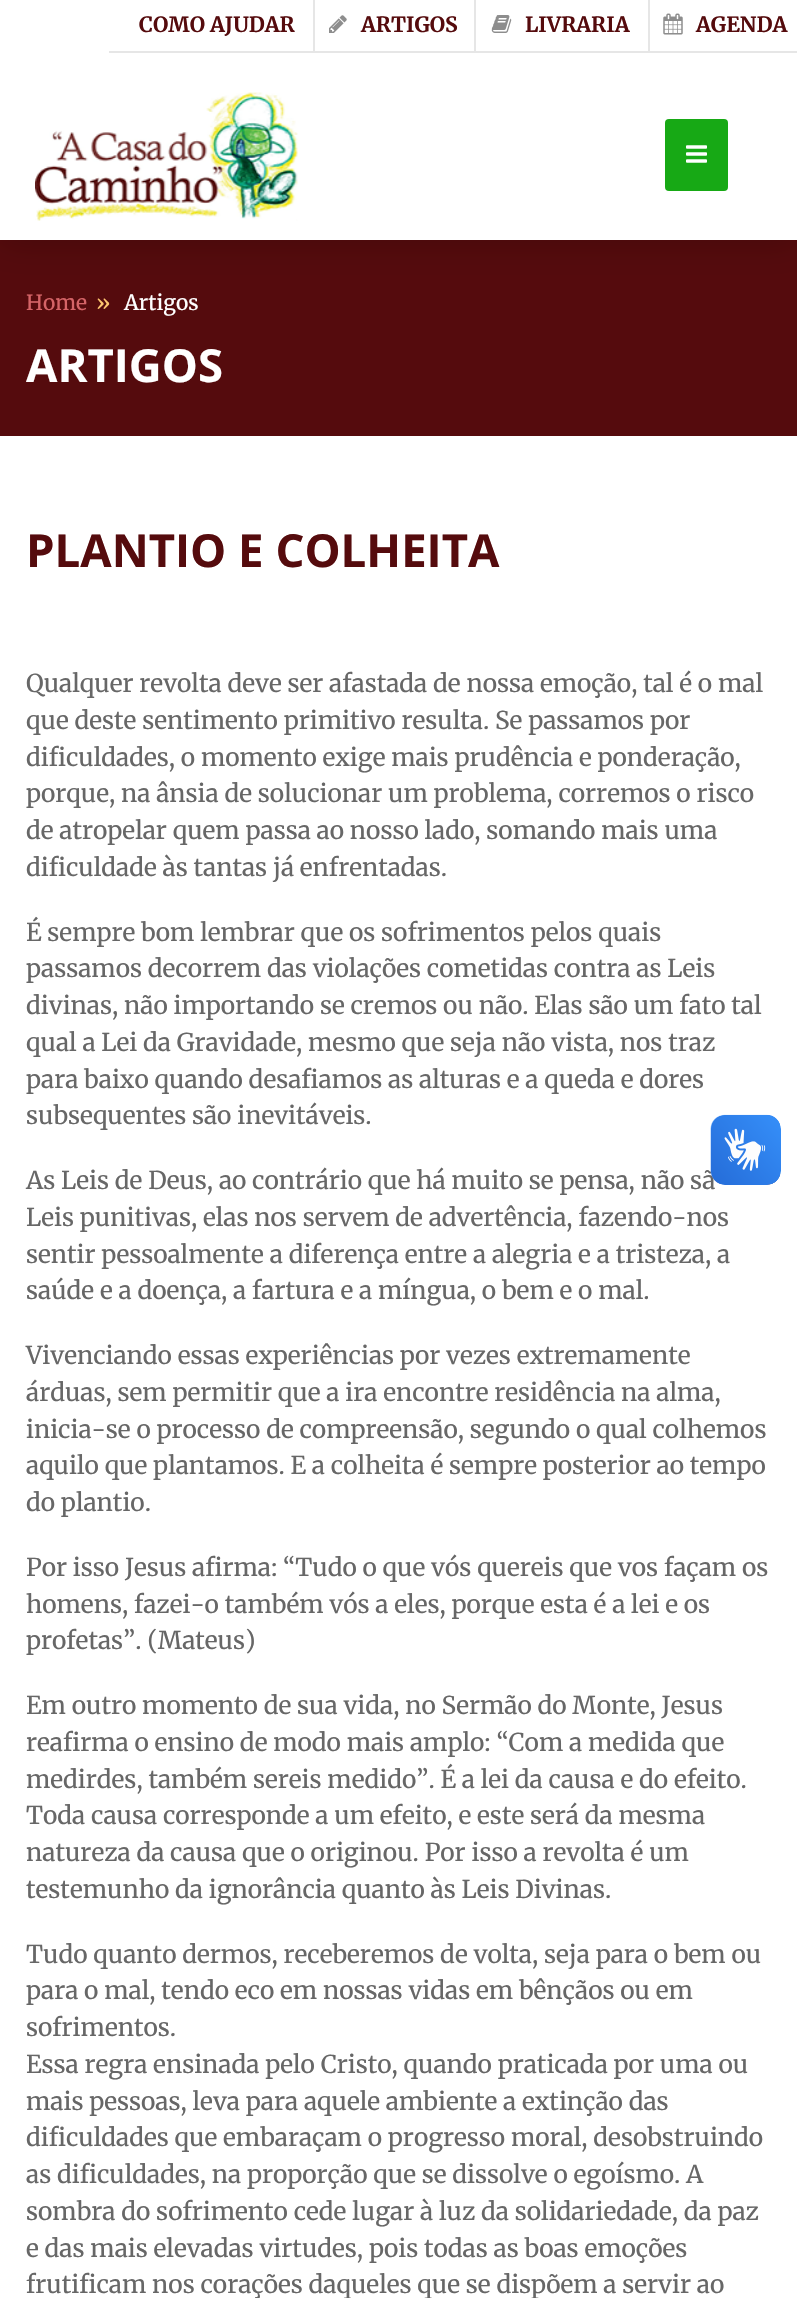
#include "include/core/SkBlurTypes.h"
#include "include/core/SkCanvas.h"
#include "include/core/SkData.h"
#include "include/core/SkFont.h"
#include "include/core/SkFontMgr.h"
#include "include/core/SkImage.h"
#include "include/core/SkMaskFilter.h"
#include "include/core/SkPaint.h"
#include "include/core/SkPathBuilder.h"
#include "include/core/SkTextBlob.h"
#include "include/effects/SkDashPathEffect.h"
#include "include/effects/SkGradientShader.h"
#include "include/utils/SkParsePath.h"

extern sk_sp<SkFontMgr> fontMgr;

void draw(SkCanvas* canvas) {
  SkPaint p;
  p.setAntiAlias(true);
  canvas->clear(SK_ColorWHITE);
  p.setColor(SkColorSetRGB(85, 11, 13));
  canvas->drawRect(SkRect::MakeLTRB(0, 240, 797, 436), p);
  p.setColor(SkColorSetARGB(51, 0, 0, 0));
  p.setMaskFilter(SkMaskFilter::MakeBlur(kNormal_SkBlurStyle, 17.5f));
  canvas->drawRect(SkRect::MakeLTRB(0, 0, 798, 240), p);
  p.setMaskFilter(nullptr);
  p.setColor(SK_ColorWHITE);
  canvas->drawRect(SkRect::MakeLTRB(0, 0, 797, 240), p);
  p.setColor(SkColorSetRGB(230, 230, 230));
  canvas->drawRect(SkRect::MakeLTRB(313, 0, 315, 53), p);
  canvas->drawRect(SkRect::MakeLTRB(109, 51, 315, 53), p);
  canvas->drawRect(SkRect::MakeLTRB(474, 0, 476, 53), p);
  canvas->drawRect(SkRect::MakeLTRB(312, 51, 476, 53), p);
  canvas->drawImageRect(SkImages::DeferredFromEncodedData(SkData::MakeFromFileName("images/1.png")), SkRect::MakeLTRB(329, 15, 347, 33), SkSamplingOptions());
  canvas->drawRect(SkRect::MakeLTRB(648, 0, 650, 53), p);
  canvas->drawRect(SkRect::MakeLTRB(474, 51, 797, 53), p);
  canvas->drawImageRect(SkImages::DeferredFromEncodedData(SkData::MakeFromFileName("images/2.png")), SkRect::MakeLTRB(491, 15, 512, 33), SkSamplingOptions());
  canvas->drawImageRect(SkImages::DeferredFromEncodedData(SkData::MakeFromFileName("images/3.png")), SkRect::MakeLTRB(663, 13, 683, 35), SkSamplingOptions());
  canvas->drawImageRect(SkImages::DeferredFromEncodedData(SkData::MakeFromFileName("images/4.png")), SkRect::MakeLTRB(35, 92, 298, 221), SkSamplingOptions());
  p.setColor(SkColorSetRGB(23, 169, 21));
  canvas->drawRoundRect(SkRect::MakeLTRB(665, 119, 728, 191), 4, 4, p);
  canvas->drawImageRect(SkImages::DeferredFromEncodedData(SkData::MakeFromFileName("images/5.png")), SkRect::MakeLTRB(686, 145, 707, 163), SkSamplingOptions());
  SkFont font1(fontMgr->matchFamilyStyle("Merriweather", SkFontStyle::Bold()), 21);
  font1.setSubpixel(true);
  p.setColor(SkColorSetRGB(85, 11, 13));
  canvas->drawString("COMO AJUDAR", 139, 32, font1, p);
  canvas->drawString("ARTIGOS", 361, 32, font1, p);
  canvas->drawString("LIVRARIA", 525, 32, font1, p);
  canvas->drawString("AGENDA", 696, 32, font1, p);
  SkFont font2(fontMgr->matchFamilyStyle("Merriweather", SkFontStyle::Normal()), 21);
  font2.setSubpixel(true);
  p.setColor(SkColorSetRGB(213, 100, 103));
  canvas->drawString("Home", 26, 310, font2, p);
  p.setColor(SkColorSetRGB(255, 199, 112));
  canvas->drawString("»", 96, 310, font2, p);
  p.setColor(SK_ColorWHITE);
  canvas->drawString("Artigos", 124, 310, font2, p);
  SkFont font3(fontMgr->matchFamilyStyle("Open Sans", SkFontStyle::Bold()), 45.5f);
  font3.setSubpixel(true);
  canvas->drawString("ARTIGOS", 26, 382, font3, p);
  p.setColor(SkColorSetRGB(85, 11, 13));
  canvas->drawString("PLANTIO E COLHEITA", 26, 567, font3, p);
  SkFont font4(fontMgr->matchFamilyStyle("Merriweather", SkFontStyle::Normal()), 24.5f);
  font4.setSubpixel(true);
  p.setColor(SkColorSetRGB(103, 103, 103));
  canvas->drawString("Qualquer revolta deve ser afastada de nossa emoção, tal é o mal", 26, 692, font4, p);
  canvas->drawString("que deste sentimento primitivo resulta. Se passamos por", 26, 729, font4, p);
  canvas->drawString("dificuldades, o momento exige mais prudência e ponderação,", 26, 766, font4, p);
  canvas->drawString("porque, na ânsia de solucionar um problema, corremos o risco", 26, 802, font4, p);
  canvas->drawString("de atropelar quem passa ao nosso lado, somando mais uma", 26, 839, font4, p);
  canvas->drawString("dificuldade às tantas já enfrentadas.", 26, 876, font4, p);
  canvas->drawString("É sempre bom lembrar que os sofrimentos pelos quais", 26, 941, font4, p);
  canvas->drawString("passamos decorrem das violações cometidas contra as Leis", 26, 977, font4, p);
  canvas->drawString("divinas, não importando se cremos ou não. Elas são um fato tal", 26, 1014, font4, p);
  canvas->drawString("qual a Lei da Gravidade, mesmo que seja não vista, nos traz", 26, 1051, font4, p);
  canvas->drawString("para baixo quando desafiamos as alturas e a queda e dores", 26, 1088, font4, p);
  canvas->drawString("subsequentes são inevitáveis.", 26, 1124, font4, p);
  canvas->drawString("As Leis de Deus, ao contrário que há muito se pensa, não sã", 26, 1189, font4, p);
  canvas->drawString("Leis punitivas, elas nos servem de advertência, fazendo-nos", 26, 1226, font4, p);
  canvas->drawString("sentir pessoalmente a diferença entre a alegria e a tristeza, a", 26, 1263, font4, p);
  canvas->drawString("saúde e a doença, a fartura e a míngua, o bem e o mal.", 26, 1299, font4, p);
  canvas->drawString("Vivenciando essas experiências por vezes extremamente", 26, 1364, font4, p);
  canvas->drawString("árduas, sem permitir que a ira encontre residência na alma,", 26, 1401, font4, p);
  canvas->drawString("inicia-se o processo de compreensão, segundo o qual colhemos", 26, 1438, font4, p);
  canvas->drawString("aquilo que plantamos. E a colheita é sempre posterior ao tempo", 26, 1474, font4, p);
  canvas->drawString("do plantio.", 26, 1511, font4, p);
  canvas->drawString("Por isso Jesus afirma: “Tudo o que vós quereis que vos façam os", 26, 1576, font4, p);
  canvas->drawString("homens, fazei-o também vós a eles, porque esta é a lei e os", 26, 1613, font4, p);
  canvas->drawString("profetas”. (Mateus)", 26, 1649, font4, p);
  canvas->drawString("Em outro momento de sua vida, no Sermão do Monte, Jesus", 26, 1714, font4, p);
  canvas->drawString("reafirma o ensino de modo mais amplo: “Com a medida que", 26, 1751, font4, p);
  canvas->drawString("medirdes, também sereis medido”. É a lei da causa e do efeito.", 26, 1788, font4, p);
  canvas->drawString("Toda causa corresponde a um efeito, e este será da mesma", 26, 1824, font4, p);
  canvas->drawString("natureza da causa que o originou. Por isso a revolta é um", 26, 1861, font4, p);
  canvas->drawString("testemunho da ignorância quanto às Leis Divinas.", 26, 1898, font4, p);
  canvas->drawString("Tudo quanto dermos, receberemos de volta, seja para o bem ou", 26, 1963, font4, p);
  canvas->drawString("para o mal, tendo eco em nossas vidas em bênçãos ou em", 26, 1999, font4, p);
  canvas->drawString("sofrimentos.", 26, 2036, font4, p);
  canvas->drawString("Essa regra ensinada pelo Cristo, quando praticada por uma ou", 26, 2073, font4, p);
  canvas->drawString("mais pessoas, leva para aquele ambiente a extinção das", 26, 2110, font4, p);
  canvas->drawString("dificuldades que embaraçam o progresso moral, desobstruindo", 26, 2146, font4, p);
  canvas->drawString("as dificuldades, na proporção que se dissolve o egoísmo. A", 26, 2183, font4, p);
  canvas->drawString("sombra do sofrimento cede lugar à luz da solidariedade, da paz", 26, 2220, font4, p);
  canvas->drawString("e das mais elevadas virtudes, pois todas as boas emoções", 26, 2257, font4, p);
  canvas->drawString("frutificam nos corações daqueles que se dispõem a servir ao", 26, 2293, font4, p);
  canvas->drawImageRect(SkImages::DeferredFromEncodedData(SkData::MakeFromFileName("images/6.png")), SkRect::MakeLTRB(710, 1114, 781, 1185), SkSamplingOptions());
  canvas->drawImageRect(SkImages::DeferredFromEncodedData(SkData::MakeFromFileName("images/7.png")), SkRect::MakeLTRB(711, 1115, 781, 1185), SkSamplingOptions());
}
